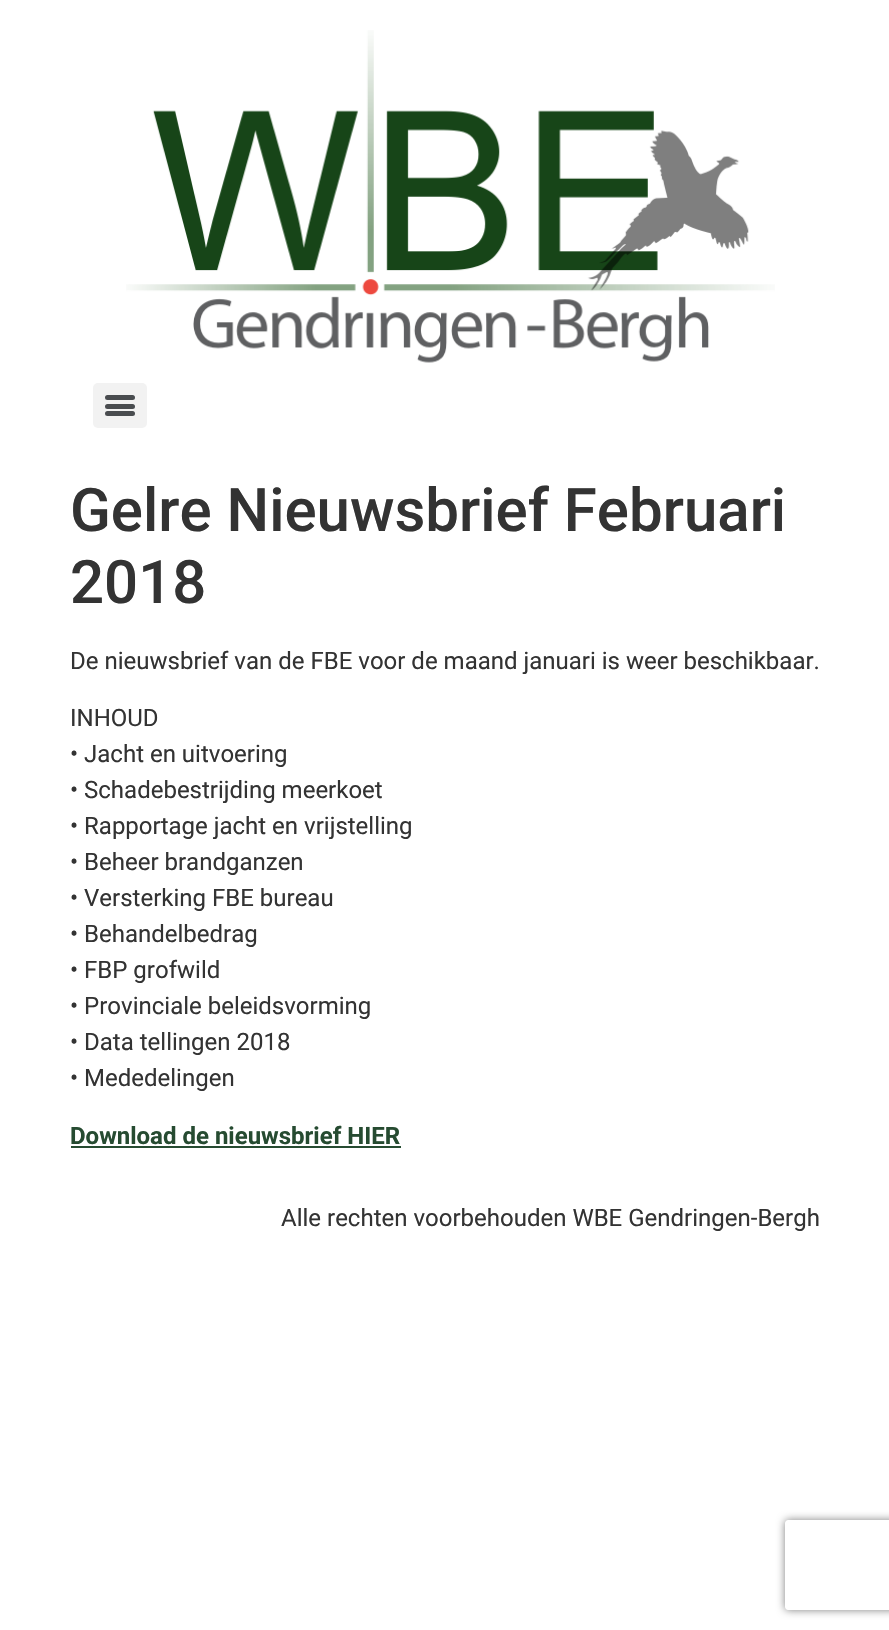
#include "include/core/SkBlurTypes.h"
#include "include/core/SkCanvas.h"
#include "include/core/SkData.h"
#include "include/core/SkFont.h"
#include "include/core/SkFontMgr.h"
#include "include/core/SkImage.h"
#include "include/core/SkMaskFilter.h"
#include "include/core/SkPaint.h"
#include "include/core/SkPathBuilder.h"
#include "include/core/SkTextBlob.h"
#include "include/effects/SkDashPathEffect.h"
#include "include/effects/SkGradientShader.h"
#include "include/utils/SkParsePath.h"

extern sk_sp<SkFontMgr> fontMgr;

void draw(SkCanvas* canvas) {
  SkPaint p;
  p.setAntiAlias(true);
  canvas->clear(SK_ColorWHITE);
  canvas->drawImageRect(SkImages::DeferredFromEncodedData(SkData::MakeFromFileName("images/1.png")), SkRect::MakeLTRB(126, 30, 775, 363), SkSamplingOptions());
  p.setColor(SkColorSetRGB(242, 242, 242));
  canvas->drawRoundRect(SkRect::MakeLTRB(93, 383, 147, 428), 5, 5, p);
  p.setColor(SkColorSetRGB(73, 76, 79));
  canvas->drawRoundRect(SkRect::MakeLTRB(105, 404, 135, 409), 2.5f, 2.5f, p);
  canvas->drawRoundRect(SkRect::MakeLTRB(105, 395, 135, 400), 2.5f, 2.5f, p);
  canvas->drawRoundRect(SkRect::MakeLTRB(105, 411, 135, 416), 2.5f, 2.5f, p);
  p.setColor(SkColorSetRGB(38, 75, 49));
  canvas->drawRect(SkRect::MakeLTRB(71, 1146, 401, 1148), p);
  canvas->save();
  canvas->clipPath(SkPathBuilder(SkPathFillType::kEvenOdd).moveTo(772, 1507).lineTo(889, 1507).lineTo(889, 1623).lineTo(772, 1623).close().moveTo(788, 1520).lineTo(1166, 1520).cubicTo(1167.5f, 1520, 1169, 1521.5f, 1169, 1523).lineTo(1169, 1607).cubicTo(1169, 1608.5f, 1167.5f, 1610, 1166, 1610).lineTo(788, 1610).cubicTo(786.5f, 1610, 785, 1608.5f, 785, 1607).lineTo(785, 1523).cubicTo(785, 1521.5f, 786.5f, 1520, 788, 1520).close().detach(), true);
  p.setColor(SkColorSetRGB(128, 128, 128));
  p.setMaskFilter(SkMaskFilter::MakeBlur(kNormal_SkBlurStyle, 4));
  canvas->drawRoundRect(SkRect::MakeLTRB(785, 1520, 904, 1610), 3, 3, p);
  p.setMaskFilter(nullptr);
  canvas->restore();
  SkFont font1(fontMgr->matchFamilyStyle("Roboto", SkFontStyle(500, SkFontStyle::kNormal_Width, SkFontStyle::kUpright_Slant)), 60);
  font1.setSubpixel(true);
  p.setColor(SkColorSetRGB(51, 51, 51));
  canvas->drawString("Gelre Nieuwsbrief Februari", 70, 531, font1, p);
  canvas->drawString("2018", 70, 603, font1, p);
  SkFont font2(fontMgr->matchFamilyStyle("Roboto", SkFontStyle::Normal()), 24);
  font2.setSubpixel(true);
  canvas->drawString("De nieuwsbrief van de FBE voor de maand januari is weer beschikbaar.", 70, 669, font2, p);
  canvas->drawString("INHOUD", 70, 726, font2, p);
  canvas->drawString("• Jacht en uitvoering", 70, 762, font2, p);
  canvas->drawString("• Schadebestrijding meerkoet", 70, 798, font2, p);
  canvas->drawString("• Rapportage jacht en vrijstelling", 70, 834, font2, p);
  canvas->drawString("• Beheer brandganzen", 70, 870, font2, p);
  canvas->drawString("• Versterking FBE bureau", 70, 906, font2, p);
  canvas->drawString("• Behandelbedrag", 70, 942, font2, p);
  canvas->drawString("• FBP grofwild", 70, 978, font2, p);
  canvas->drawString("• Provinciale beleidsvorming", 70, 1014, font2, p);
  canvas->drawString("• Data tellingen 2018", 70, 1050, font2, p);
  canvas->drawString("• Mededelingen", 70, 1086, font2, p);
  SkFont font3(fontMgr->matchFamilyStyle("Roboto", SkFontStyle::Bold()), 24);
  font3.setSubpixel(true);
  p.setColor(SkColorSetRGB(38, 75, 49));
  canvas->drawString("Download de nieuwsbrief HIER", 70, 1144, font3, p);
  p.setColor(SkColorSetRGB(51, 51, 51));
  canvas->drawString("Alle rechten voorbehouden WBE Gendringen-Bergh", 281, 1226, font2, p);
}
